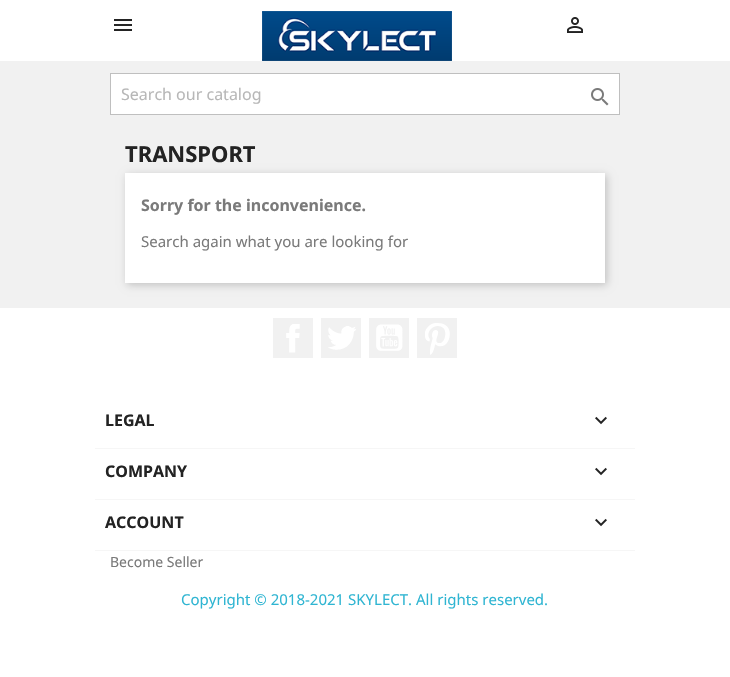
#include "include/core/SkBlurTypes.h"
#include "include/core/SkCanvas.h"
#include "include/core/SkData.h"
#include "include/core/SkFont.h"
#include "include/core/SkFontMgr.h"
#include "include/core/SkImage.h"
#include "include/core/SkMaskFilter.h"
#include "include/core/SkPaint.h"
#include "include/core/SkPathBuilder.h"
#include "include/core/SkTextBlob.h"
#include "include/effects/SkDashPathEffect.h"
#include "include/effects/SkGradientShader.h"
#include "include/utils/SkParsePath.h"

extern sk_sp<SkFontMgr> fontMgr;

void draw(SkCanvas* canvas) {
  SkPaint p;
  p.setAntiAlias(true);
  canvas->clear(SK_ColorWHITE);
  p.setColor(SkColorSetRGB(241, 241, 241));
  canvas->drawRect(SkRect::MakeLTRB(0, 61, 730, 308), p);
  canvas->drawImageRect(SkImages::DeferredFromEncodedData(SkData::MakeFromFileName("images/1.png")), SkRect::MakeLTRB(114, 19, 132, 31), SkSamplingOptions());
  canvas->drawImageRect(SkImages::DeferredFromEncodedData(SkData::MakeFromFileName("images/2.png")), SkRect::MakeLTRB(262, 11, 452, 61), SkSamplingOptions());
  canvas->drawImageRect(SkImages::DeferredFromEncodedData(SkData::MakeFromFileName("images/3.png")), SkRect::MakeLTRB(567, 17, 583, 33), SkSamplingOptions());
  p.setColor(SK_ColorWHITE);
  canvas->drawRect(SkRect::MakeLTRB(110.5f, 73.5f, 619.5f, 114.5f), p);
  p.setStyle(SkPaint::kStroke_Style);
  p.setStrokeWidth(1);
  p.setColor(SkColorSetRGB(191, 191, 191));
  canvas->drawRect(SkRect::MakeLTRB(110.5f, 73.5f, 619.5f, 114.5f), p);
  canvas->drawImageRect(SkImages::DeferredFromEncodedData(SkData::MakeFromFileName("images/4.png")), SkRect::MakeLTRB(591, 88, 609, 106), SkSamplingOptions());
  p.setStyle(SkPaint::kFill_Style);
  p.setColor(SkColorSetARGB(51, 0, 0, 0));
  p.setMaskFilter(SkMaskFilter::MakeBlur(kNormal_SkBlurStyle, 4));
  canvas->drawRect(SkRect::MakeLTRB(127, 175, 607, 285), p);
  p.setMaskFilter(nullptr);
  p.setColor(SK_ColorWHITE);
  canvas->drawRect(SkRect::MakeLTRB(125, 173, 605, 283), p);
  p.setColor(SkColorSetRGB(241, 241, 241));
  canvas->drawRect(SkRect::MakeLTRB(273, 318, 313, 358), p);
  canvas->drawImageRect(SkImages::DeferredFromEncodedData(SkData::MakeFromFileName("images/5.png")), SkRect::MakeLTRB(286, 324, 300, 353), SkSamplingOptions());
  canvas->drawRect(SkRect::MakeLTRB(321, 318, 361, 358), p);
  canvas->drawImageRect(SkImages::DeferredFromEncodedData(SkData::MakeFromFileName("images/6.png")), SkRect::MakeLTRB(328, 326, 356, 350), SkSamplingOptions());
  canvas->drawRect(SkRect::MakeLTRB(369, 318, 409, 358), p);
  canvas->drawImageRect(SkImages::DeferredFromEncodedData(SkData::MakeFromFileName("images/7.png")), SkRect::MakeLTRB(376, 324, 403, 351), SkSamplingOptions());
  canvas->drawRect(SkRect::MakeLTRB(417, 318, 457, 358), p);
  canvas->drawImageRect(SkImages::DeferredFromEncodedData(SkData::MakeFromFileName("images/8.png")), SkRect::MakeLTRB(425, 323, 450, 355), SkSamplingOptions());
  p.setColor(SkColorSetRGB(246, 246, 246));
  canvas->drawRect(SkRect::MakeLTRB(95, 448, 635, 449), p);
  canvas->drawImageRect(SkImages::DeferredFromEncodedData(SkData::MakeFromFileName("images/9.png")), SkRect::MakeLTRB(595, 416, 607, 425), SkSamplingOptions());
  canvas->drawRect(SkRect::MakeLTRB(95, 499, 635, 500), p);
  canvas->drawImageRect(SkImages::DeferredFromEncodedData(SkData::MakeFromFileName("images/9.png")), SkRect::MakeLTRB(595, 467, 607, 476), SkSamplingOptions());
  canvas->drawRect(SkRect::MakeLTRB(95, 550, 635, 551), p);
  canvas->drawImageRect(SkImages::DeferredFromEncodedData(SkData::MakeFromFileName("images/9.png")), SkRect::MakeLTRB(595, 518, 607, 527), SkSamplingOptions());
  SkFont font1(fontMgr->matchFamilyStyle("Noto Sans", SkFontStyle::Normal()), 16);
  font1.setSubpixel(true);
  p.setColor(SkColorSetRGB(183, 183, 183));
  canvas->drawString("Search our catalog", 121, 100, font1, p);
  SkFont font2(fontMgr->matchFamilyStyle("Noto Sans", SkFontStyle::Bold()), 22);
  font2.setSubpixel(true);
  p.setColor(SkColorSetRGB(35, 35, 35));
  canvas->drawString("TRANSPORT", 125, 162, font2, p);
  SkFont font3(fontMgr->matchFamilyStyle("Noto Sans", SkFontStyle::Bold()), 16);
  font3.setSubpixel(true);
  p.setColor(SkColorSetRGB(122, 122, 122));
  canvas->drawString("Sorry for the inconvenience.", 141, 211, font3, p);
  SkFont font4(fontMgr->matchFamilyStyle("Noto Sans", SkFontStyle::Normal()), 15);
  font4.setSubpixel(true);
  canvas->drawString("Search again what you are looking for", 141, 247, font4, p);
  p.setColor(SkColorSetRGB(35, 35, 35));
  canvas->drawString("LEGAL", 105, 426, font3, p);
  canvas->drawString("COMPANY", 105, 477, font3, p);
  canvas->drawString("ACCOUNT", 105, 528, font3, p);
  SkFont font5(fontMgr->matchFamilyStyle("Noto Sans", SkFontStyle::Normal()), 14);
  font5.setSubpixel(true);
  p.setColor(SkColorSetRGB(122, 122, 122));
  canvas->drawString("Become Seller", 110, 567, font5, p);
  p.setColor(SkColorSetRGB(47, 181, 210));
  canvas->drawString("Copyright © 2018-2021 SKYLECT. All rights reserved.", 181, 605, font4, p);
}
